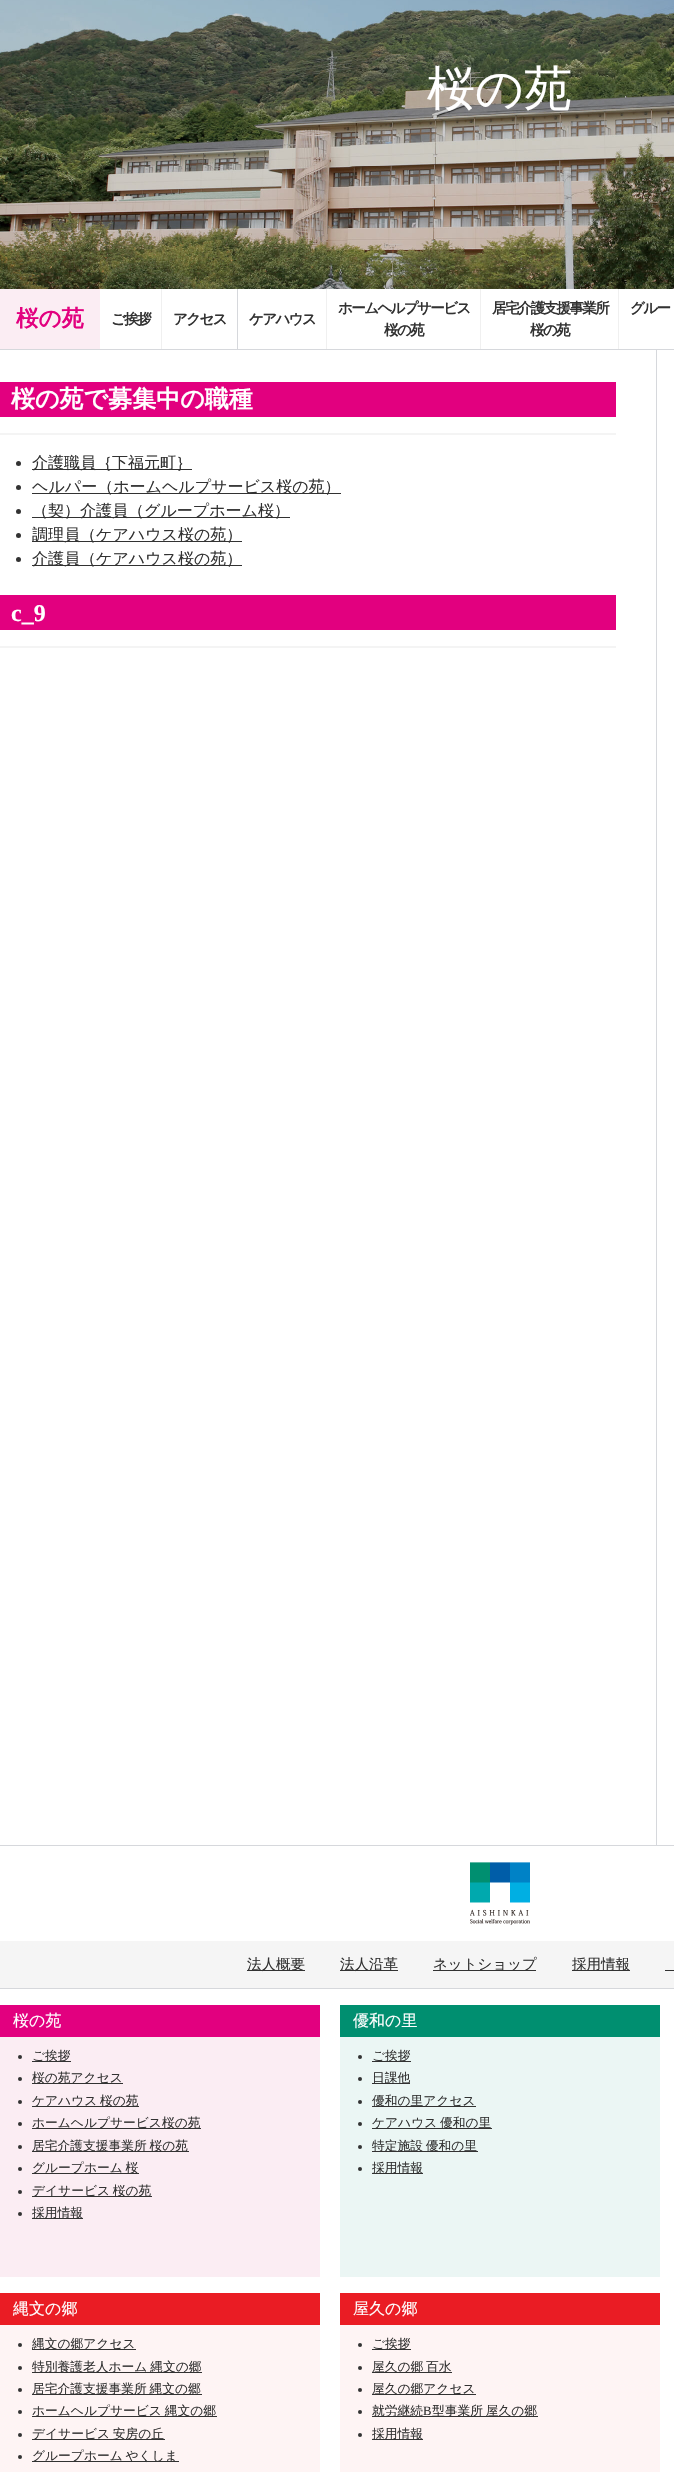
#include "include/core/SkBlurTypes.h"
#include "include/core/SkCanvas.h"
#include "include/core/SkData.h"
#include "include/core/SkFont.h"
#include "include/core/SkFontMgr.h"
#include "include/core/SkImage.h"
#include "include/core/SkMaskFilter.h"
#include "include/core/SkPaint.h"
#include "include/core/SkPathBuilder.h"
#include "include/core/SkTextBlob.h"
#include "include/effects/SkDashPathEffect.h"
#include "include/effects/SkGradientShader.h"
#include "include/utils/SkParsePath.h"

extern sk_sp<SkFontMgr> fontMgr;

void draw(SkCanvas* canvas) {
  SkPaint p;
  p.setAntiAlias(true);
  auto spacedText = [&](const char* s, float x, float y, const SkFont& font, const SkPaint& ink, float letter, float word) {
    std::vector<SkGlyphID> glyphs(font.countText(s, strlen(s), SkTextEncoding::kUTF8));
    std::vector<float> xs(glyphs.size());
    font.textToGlyphs(s, strlen(s), SkTextEncoding::kUTF8, glyphs);
    font.getXPos(glyphs, xs, x);
    float extra = 0;
    for (size_t i = 0; i < glyphs.size(); i++) {
      xs[i] += extra;
      extra += letter + word * (glyphs[i] == font.unicharToGlyph(' '));
    }
    canvas->drawTextBlob(SkTextBlob::MakeFromPosHGlyphs(glyphs, xs, y, font), 0, 0, ink);
  };
  canvas->clear(SK_ColorWHITE);
  canvas->drawImageRect(SkImages::DeferredFromEncodedData(SkData::MakeFromFileName("images/1.png")), SkRect::MakeLTRB(0, 0, 674, 289), SkSamplingOptions());
  p.setColor(SkColorSetRGB(214, 216, 220));
  canvas->drawRect(SkRect::MakeLTRB(0, 349, 674, 350), p);
  p.setColor(SkColorSetRGB(251, 237, 243));
  canvas->drawRect(SkRect::MakeLTRB(0, 289, 100, 349), p);
  p.setColor(SkColorSetRGB(240, 240, 240));
  canvas->drawRect(SkRect::MakeLTRB(480, 289, 481, 349), p);
  canvas->drawRect(SkRect::MakeLTRB(618, 289, 619, 349), p);
  canvas->drawRect(SkRect::MakeLTRB(161, 289, 162, 349), p);
  p.setColor(SkColorSetRGB(214, 216, 220));
  canvas->drawRect(SkRect::MakeLTRB(237, 289, 238, 349), p);
  p.setColor(SkColorSetRGB(240, 240, 240));
  canvas->drawRect(SkRect::MakeLTRB(326, 289, 327, 349), p);
  p.setColor(SkColorSetRGB(214, 216, 220));
  canvas->drawRect(SkRect::MakeLTRB(656, 350, 657, 1845), p);
  p.setColor(SkColorSetRGB(244, 244, 244));
  canvas->drawRect(SkRect::MakeLTRB(0, 433, 616, 435), p);
  p.setColor(SkColorSetRGB(226, 0, 127));
  canvas->drawRect(SkRect::MakeLTRB(0, 382, 616, 417), p);
  p.setColor(SkColorSetRGB(50, 50, 50));
  canvas->drawCircle(18.5f, 463.5f, 2.5f, p);
  canvas->drawRect(SkRect::MakeLTRB(32, 469, 192, 470), p);
  canvas->drawCircle(18.5f, 487.5f, 2.5f, p);
  canvas->drawRect(SkRect::MakeLTRB(32, 493, 341, 494), p);
  canvas->drawCircle(18.5f, 511.5f, 2.5f, p);
  canvas->drawRect(SkRect::MakeLTRB(32, 517, 290, 518), p);
  canvas->drawCircle(18.5f, 535.5f, 2.5f, p);
  canvas->drawRect(SkRect::MakeLTRB(32, 541, 242, 542), p);
  canvas->drawCircle(18.5f, 559.5f, 2.5f, p);
  canvas->drawRect(SkRect::MakeLTRB(32, 565, 242, 566), p);
  p.setColor(SkColorSetRGB(244, 244, 244));
  canvas->drawRect(SkRect::MakeLTRB(0, 646, 616, 648), p);
  p.setColor(SkColorSetRGB(226, 0, 127));
  canvas->drawRect(SkRect::MakeLTRB(0, 595, 616, 630), p);
  p.setColor(SkColorSetRGB(214, 216, 220));
  canvas->drawRect(SkRect::MakeLTRB(0, 1845, 674, 1846), p);
  canvas->drawImageRect(SkImages::DeferredFromEncodedData(SkData::MakeFromFileName("images/2.png")), SkRect::MakeLTRB(470, 1862, 530, 1925), SkSamplingOptions());
  p.setColor(SkColorSetRGB(245, 245, 245));
  canvas->drawRect(SkRect::MakeLTRB(0, 1941, 674, 1988), p);
  p.setColor(SkColorSetRGB(50, 50, 50));
  canvas->drawRect(SkRect::MakeLTRB(247, 1970, 305, 1971), p);
  canvas->drawRect(SkRect::MakeLTRB(340, 1970, 398, 1971), p);
  canvas->drawRect(SkRect::MakeLTRB(433, 1970, 536, 1971), p);
  canvas->drawRect(SkRect::MakeLTRB(572, 1970, 630, 1971), p);
  canvas->drawRect(SkRect::MakeLTRB(665, 1970, 674, 1971), p);
  p.setColor(SkColorSetRGB(214, 216, 220));
  canvas->drawRect(SkRect::MakeLTRB(0, 1988, 674, 1989), p);
  p.setColor(SkColorSetRGB(251, 237, 243));
  canvas->drawRect(SkRect::MakeLTRB(0, 2037, 320, 2277), p);
  p.setColor(SkColorSetRGB(226, 0, 127));
  canvas->drawRect(SkRect::MakeLTRB(0, 2005, 320, 2037), p);
  p.setColor(SkColorSetRGB(50, 50, 50));
  canvas->drawCircle(20, 2057, 2, p);
  canvas->drawRect(SkRect::MakeLTRB(32, 2061, 71, 2062), p);
  canvas->drawCircle(20, 2079, 2, p);
  canvas->drawRect(SkRect::MakeLTRB(32, 2083, 123, 2084), p);
  canvas->drawCircle(20, 2102, 2, p);
  canvas->drawRect(SkRect::MakeLTRB(32, 2106, 139, 2107), p);
  canvas->drawCircle(20, 2124, 2, p);
  canvas->drawRect(SkRect::MakeLTRB(32, 2128, 201, 2129), p);
  canvas->drawCircle(20, 2147, 2, p);
  canvas->drawRect(SkRect::MakeLTRB(32, 2151, 189, 2152), p);
  canvas->drawCircle(20, 2169, 2, p);
  canvas->drawRect(SkRect::MakeLTRB(32, 2173, 139, 2174), p);
  canvas->drawCircle(20, 2192, 2, p);
  canvas->drawRect(SkRect::MakeLTRB(32, 2196, 152, 2197), p);
  canvas->drawCircle(20, 2214, 2, p);
  canvas->drawRect(SkRect::MakeLTRB(32, 2218, 83, 2219), p);
  p.setColor(SkColorSetRGB(235, 246, 244));
  canvas->drawRect(SkRect::MakeLTRB(340, 2037, 660, 2277), p);
  p.setColor(SkColorSetRGB(0, 143, 112));
  canvas->drawRect(SkRect::MakeLTRB(340, 2005, 660, 2037), p);
  p.setColor(SkColorSetRGB(50, 50, 50));
  canvas->drawCircle(360, 2057, 2, p);
  canvas->drawRect(SkRect::MakeLTRB(372, 2061, 411, 2062), p);
  canvas->drawCircle(360, 2079, 2, p);
  canvas->drawRect(SkRect::MakeLTRB(372, 2083, 410, 2084), p);
  canvas->drawCircle(360, 2102, 2, p);
  canvas->drawRect(SkRect::MakeLTRB(372, 2106, 476, 2107), p);
  canvas->drawCircle(360, 2124, 2, p);
  canvas->drawRect(SkRect::MakeLTRB(372, 2128, 492, 2129), p);
  canvas->drawCircle(360, 2147, 2, p);
  canvas->drawRect(SkRect::MakeLTRB(372, 2151, 478, 2152), p);
  canvas->drawCircle(360, 2169, 2, p);
  canvas->drawRect(SkRect::MakeLTRB(372, 2173, 423, 2174), p);
  p.setColor(SkColorSetRGB(254, 244, 244));
  canvas->drawRect(SkRect::MakeLTRB(0, 2325, 320, 2472), p);
  p.setColor(SkColorSetRGB(234, 28, 36));
  canvas->drawRect(SkRect::MakeLTRB(0, 2293, 320, 2325), p);
  p.setColor(SkColorSetRGB(50, 50, 50));
  canvas->drawCircle(20, 2345, 2, p);
  canvas->drawRect(SkRect::MakeLTRB(32, 2349, 136, 2350), p);
  canvas->drawCircle(20, 2368, 2, p);
  canvas->drawRect(SkRect::MakeLTRB(32, 2372, 202, 2373), p);
  canvas->drawCircle(20, 2390, 2, p);
  canvas->drawRect(SkRect::MakeLTRB(32, 2394, 202, 2395), p);
  canvas->drawCircle(20, 2412, 2, p);
  canvas->drawRect(SkRect::MakeLTRB(32, 2416, 217, 2417), p);
  canvas->drawCircle(20, 2435, 2, p);
  canvas->drawRect(SkRect::MakeLTRB(32, 2439, 165, 2440), p);
  canvas->drawCircle(20, 2457, 2, p);
  canvas->drawRect(SkRect::MakeLTRB(32, 2461, 179, 2462), p);
  p.setColor(SkColorSetRGB(254, 244, 244));
  canvas->drawRect(SkRect::MakeLTRB(340, 2325, 660, 2472), p);
  p.setColor(SkColorSetRGB(234, 28, 36));
  canvas->drawRect(SkRect::MakeLTRB(340, 2293, 660, 2325), p);
  p.setColor(SkColorSetRGB(50, 50, 50));
  canvas->drawCircle(360, 2345, 2, p);
  canvas->drawRect(SkRect::MakeLTRB(372, 2349, 411, 2350), p);
  canvas->drawCircle(360, 2368, 2, p);
  canvas->drawRect(SkRect::MakeLTRB(372, 2372, 452, 2373), p);
  canvas->drawCircle(360, 2390, 2, p);
  canvas->drawRect(SkRect::MakeLTRB(372, 2394, 476, 2395), p);
  canvas->drawCircle(360, 2412, 2, p);
  canvas->drawRect(SkRect::MakeLTRB(372, 2416, 538, 2417), p);
  canvas->drawCircle(360, 2435, 2, p);
  canvas->drawRect(SkRect::MakeLTRB(372, 2439, 423, 2440), p);
  SkFont font1(fontMgr->matchFamilyStyle("WenQuanYi Zen Hei", SkFontStyle(500, SkFontStyle::kNormal_Width, SkFontStyle::kUpright_Slant)), 48);
  font1.setSubpixel(true);
  p.setColor(SK_ColorWHITE);
  canvas->drawString("桜の苑", 427, 105, font1, p);
  SkFont font2(fontMgr->matchFamilyStyle("WenQuanYi Zen Hei", SkFontStyle::Bold()), 22.5f);
  font2.setSubpixel(true);
  p.setColor(SkColorSetRGB(226, 0, 127));
  canvas->drawString("桜の苑", 16, 326, font2, p);
  SkFont font3(fontMgr->matchFamilyStyle("WenQuanYi Zen Hei", SkFontStyle::Bold()), 14.5f);
  font3.setSubpixel(true);
  p.setColor(SkColorSetRGB(50, 50, 50));
  spacedText("ホームヘルプサービス", 338, 313, font3, p, -1.6f, 0);
  spacedText("桜の苑", 384, 335, font3, p, -1.6f, 0);
  spacedText("居宅介護支援事業所", 492, 313, font3, p, -1.6f, 0);
  spacedText("桜の苑", 530, 335, font3, p, -1.6f, 0);
  spacedText("グルー", 630, 313, font3, p, -1.6f, 0);
  spacedText("ご挨拶", 111, 324, font3, p, -1.6f, 0);
  spacedText("アクセス", 173, 324, font3, p, -1.6f, 0);
  spacedText("ケアハウス", 249, 324, font3, p, -1.6f, 0);
  SkFont font4(fontMgr->matchFamilyStyle("WenQuanYi Zen Hei", SkFontStyle::Bold()), 24);
  font4.setSubpixel(true);
  p.setColor(SK_ColorWHITE);
  canvas->drawString("桜の苑で募集中の職種", 11, 407, font4, p);
  SkFont font5(fontMgr->matchFamilyStyle("WenQuanYi Zen Hei", SkFontStyle(500, SkFontStyle::kNormal_Width, SkFontStyle::kUpright_Slant)), 16);
  font5.setSubpixel(true);
  p.setColor(SkColorSetRGB(50, 50, 50));
  canvas->drawString("介護職員｛下福元町｝", 32, 468, font5, p);
  canvas->drawString("ヘルパー（ホームヘルプサービス桜の苑）", 32, 492, font5, p);
  canvas->drawString("（契）介護員（グループホーム桜）", 32, 516, font5, p);
  canvas->drawString("調理員（ケアハウス桜の苑）", 32, 540, font5, p);
  canvas->drawString("介護員（ケアハウス桜の苑）", 32, 564, font5, p);
  SkFont font6(fontMgr->matchFamilyStyle("Liberation Serif", SkFontStyle::Bold()), 24);
  font6.setSubpixel(true);
  p.setColor(SK_ColorWHITE);
  canvas->drawString("c_9", 11, 621, font6, p);
  SkFont font7(fontMgr->matchFamilyStyle("WenQuanYi Zen Hei", SkFontStyle(500, SkFontStyle::kNormal_Width, SkFontStyle::kUpright_Slant)), 14.5f);
  font7.setSubpixel(true);
  p.setColor(SkColorSetRGB(50, 50, 50));
  canvas->drawString("法人概要", 247, 1969, font7, p);
  canvas->drawString("法人沿革", 340, 1969, font7, p);
  canvas->drawString("ネットショップ", 433, 1969, font7, p);
  canvas->drawString("採用情報", 572, 1969, font7, p);
  p.setColor(SK_ColorWHITE);
  canvas->drawString("桜の苑", 13, 2026, font5, p);
  SkFont font8(fontMgr->matchFamilyStyle("WenQuanYi Zen Hei", SkFontStyle(500, SkFontStyle::kNormal_Width, SkFontStyle::kUpright_Slant)), 12.75f);
  font8.setSubpixel(true);
  p.setColor(SkColorSetRGB(50, 50, 50));
  canvas->drawString("ご挨拶", 32, 2060, font8, p);
  canvas->drawString("桜の苑アクセス", 32, 2082, font8, p);
  spacedText("ケアハウス 桜の苑", 32, 2105, font8, p, 0, -1);
  canvas->drawString("ホームヘルプサービス桜の苑", 32, 2127, font8, p);
  spacedText("居宅介護支援事業所 桜の苑", 32, 2150, font8, p, 0, -1);
  spacedText("グループホーム 桜", 32, 2172, font8, p, 0, -1);
  spacedText("デイサービス 桜の苑", 32, 2195, font8, p, 0, -1);
  canvas->drawString("採用情報", 32, 2217, font8, p);
  p.setColor(SK_ColorWHITE);
  canvas->drawString("優和の里", 353, 2026, font5, p);
  p.setColor(SkColorSetRGB(50, 50, 50));
  canvas->drawString("ご挨拶", 372, 2060, font8, p);
  canvas->drawString("日課他", 372, 2082, font8, p);
  canvas->drawString("優和の里アクセス", 372, 2105, font8, p);
  spacedText("ケアハウス 優和の里", 372, 2127, font8, p, 0, -1);
  spacedText("特定施設 優和の里", 372, 2150, font8, p, 0, -1);
  canvas->drawString("採用情報", 372, 2172, font8, p);
  p.setColor(SK_ColorWHITE);
  canvas->drawString("縄文の郷", 13, 2314, font5, p);
  p.setColor(SkColorSetRGB(50, 50, 50));
  canvas->drawString("縄文の郷アクセス", 32, 2348, font8, p);
  spacedText("特別養護老人ホーム 縄文の郷", 32, 2371, font8, p, 0, -1);
  spacedText("居宅介護支援事業所 縄文の郷", 32, 2393, font8, p, 0, -1);
  spacedText("ホームヘルプサービス 縄文の郷", 32, 2415, font8, p, 0, -1);
  spacedText("デイサービス 安房の丘", 32, 2438, font8, p, 0, -1);
  spacedText("グループホーム やくしま", 32, 2460, font8, p, 0, -1);
  p.setColor(SK_ColorWHITE);
  canvas->drawString("屋久の郷", 353, 2314, font5, p);
  p.setColor(SkColorSetRGB(50, 50, 50));
  canvas->drawString("ご挨拶", 372, 2348, font8, p);
  spacedText("屋久の郷 百水", 372, 2371, font8, p, 0, -1);
  canvas->drawString("屋久の郷アクセス", 372, 2393, font8, p);
  canvas->drawString("就労継続", 372, 2415, font8, p);
  SkFont font9(fontMgr->matchFamilyStyle("Liberation Serif", SkFontStyle::Normal()), 12.75f);
  font9.setSubpixel(true);
  canvas->drawString("B", 423, 2415, font9, p);
  spacedText("型事業所 屋久の郷", 432, 2415, font8, p, 0, -1);
  canvas->drawString("採用情報", 372, 2438, font8, p);
}
